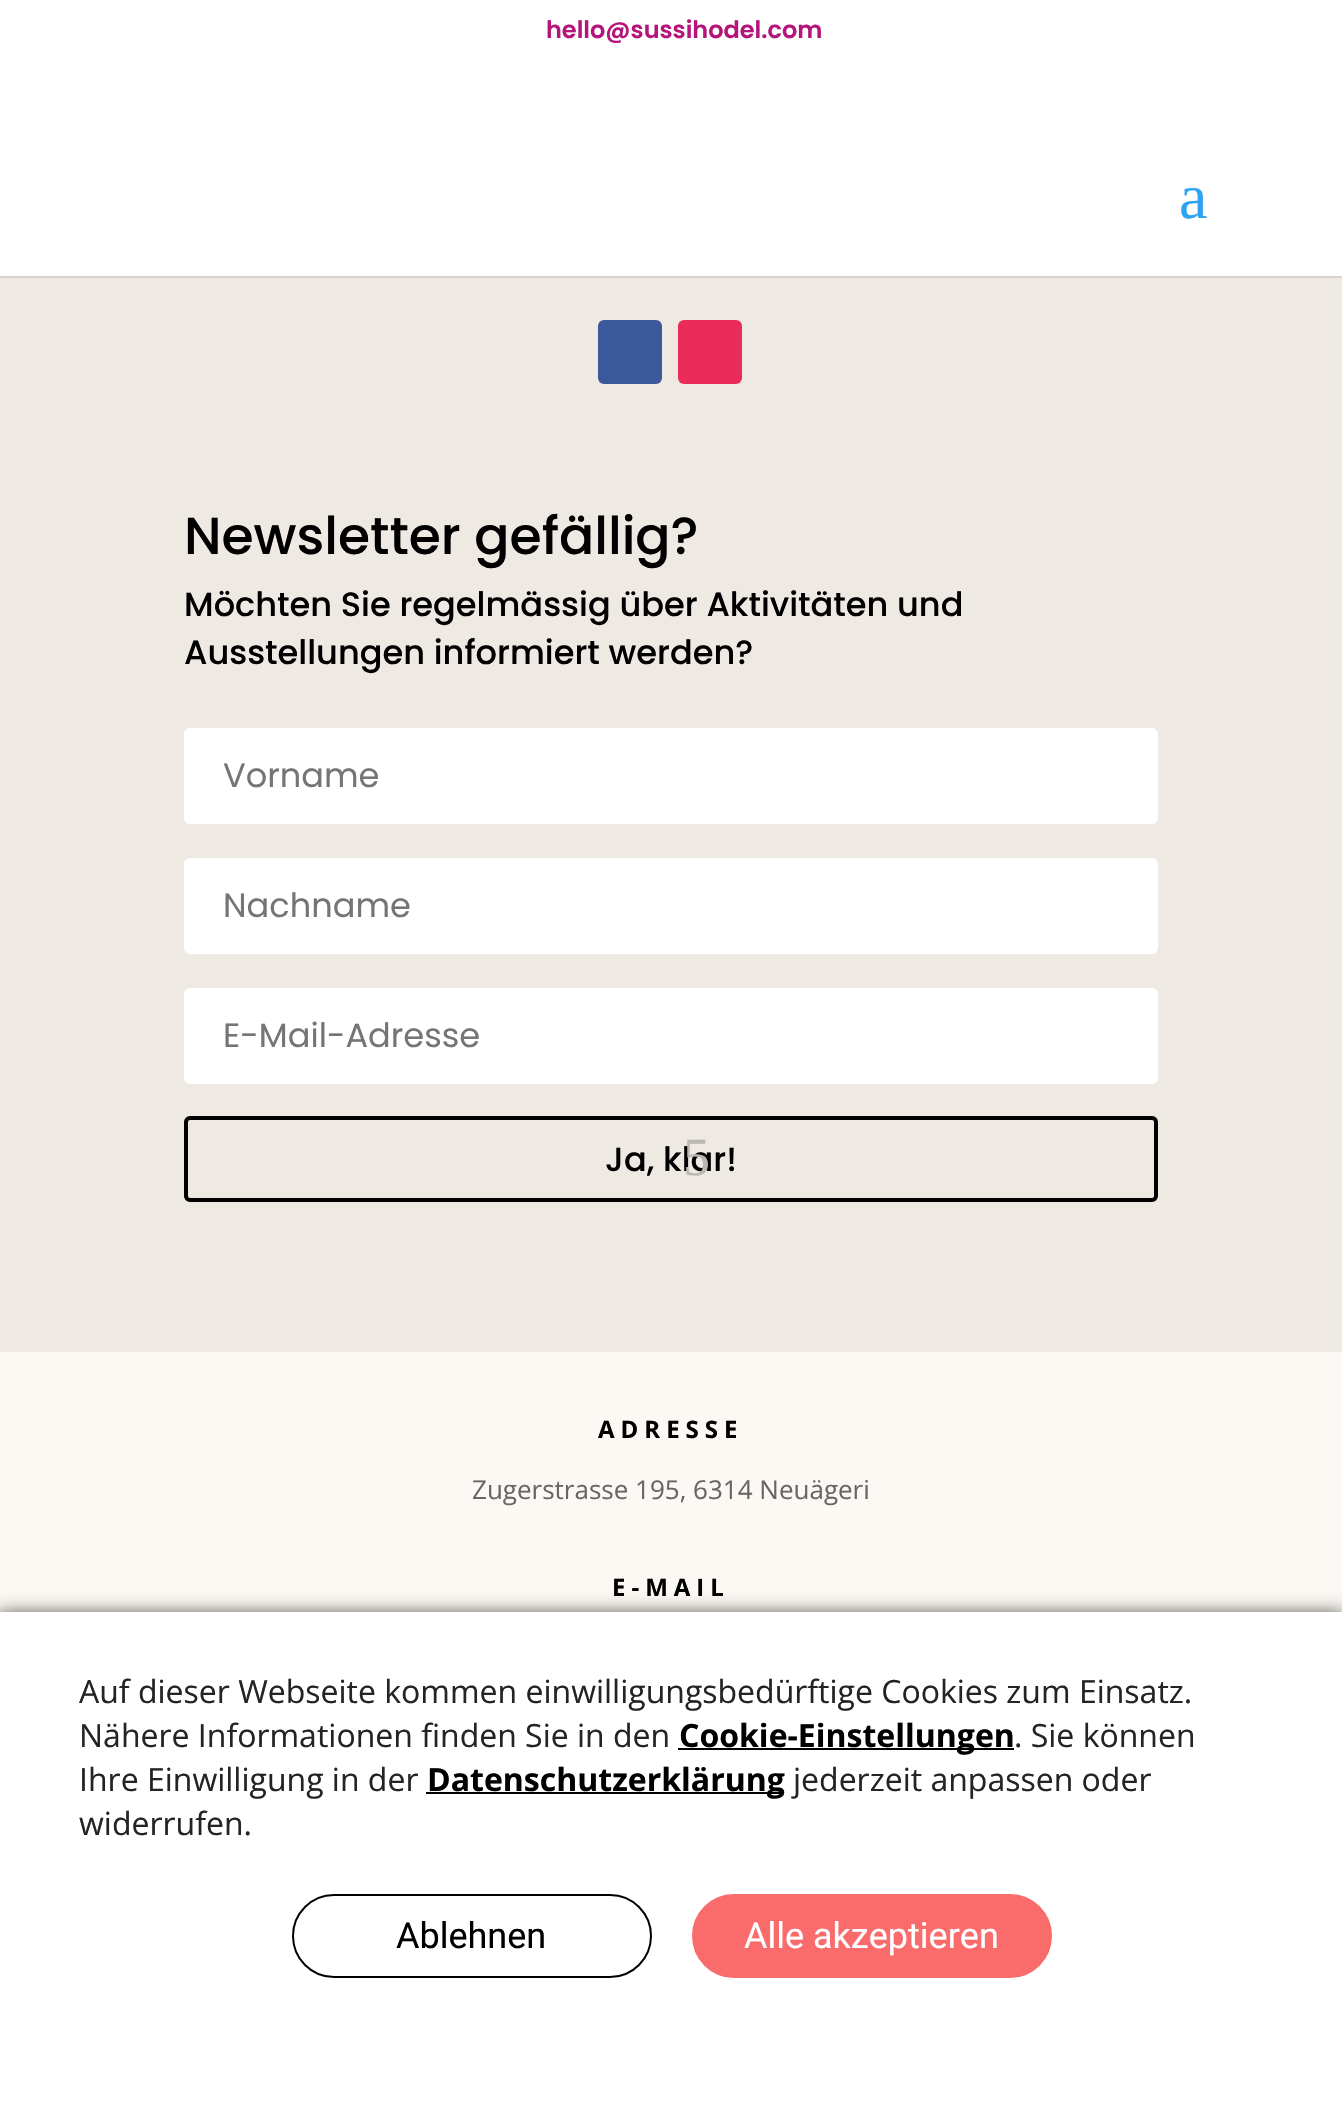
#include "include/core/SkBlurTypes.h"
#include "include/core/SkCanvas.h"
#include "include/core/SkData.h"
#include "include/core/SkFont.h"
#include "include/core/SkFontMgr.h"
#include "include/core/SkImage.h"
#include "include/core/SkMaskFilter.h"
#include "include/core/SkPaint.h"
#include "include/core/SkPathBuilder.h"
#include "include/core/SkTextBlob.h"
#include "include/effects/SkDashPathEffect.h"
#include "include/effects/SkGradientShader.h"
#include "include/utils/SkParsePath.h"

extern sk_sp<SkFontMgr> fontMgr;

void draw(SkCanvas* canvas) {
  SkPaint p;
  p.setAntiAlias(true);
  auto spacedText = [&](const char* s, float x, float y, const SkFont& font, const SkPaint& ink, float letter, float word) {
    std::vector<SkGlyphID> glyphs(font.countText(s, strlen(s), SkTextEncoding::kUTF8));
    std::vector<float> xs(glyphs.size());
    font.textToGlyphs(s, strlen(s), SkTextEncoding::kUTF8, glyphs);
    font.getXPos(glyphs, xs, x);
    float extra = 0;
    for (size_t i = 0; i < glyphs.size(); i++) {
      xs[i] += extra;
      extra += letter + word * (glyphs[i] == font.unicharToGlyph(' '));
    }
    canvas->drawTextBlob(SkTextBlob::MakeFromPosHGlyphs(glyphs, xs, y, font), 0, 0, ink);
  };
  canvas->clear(SK_ColorWHITE);
  p.setColor(SkColorSetRGB(215, 210, 205));
  canvas->drawRect(SkRect::MakeLTRB(0, 276, 1342, 278), p);
  p.setColor(SkColorSetRGB(239, 233, 228));
  canvas->drawRect(SkRect::MakeLTRB(0, 278, 1342, 1352), p);
  p.setColor(SkColorSetRGB(59, 89, 152));
  canvas->drawRoundRect(SkRect::MakeLTRB(598, 320, 662, 384), 6, 6, p);
  p.setColor(SkColorSetRGB(234, 44, 89));
  canvas->drawRoundRect(SkRect::MakeLTRB(678, 320, 742, 384), 6, 6, p);
  p.setColor(SK_ColorWHITE);
  canvas->drawRoundRect(SkRect::MakeLTRB(184, 728, 1158, 824), 6, 6, p);
  canvas->drawRoundRect(SkRect::MakeLTRB(184, 858, 1158, 954), 6, 6, p);
  canvas->drawRoundRect(SkRect::MakeLTRB(184, 988, 1158, 1084), 6, 6, p);
  p.setStyle(SkPaint::kStroke_Style);
  p.setStrokeWidth(4);
  p.setColor(SK_ColorBLACK);
  canvas->drawRoundRect(SkRect::MakeLTRB(186, 1118, 1156, 1200), 4, 4, p);
  p.setStyle(SkPaint::kFill_Style);
  p.setColor(SkColorSetRGB(252, 248, 243));
  canvas->drawRect(SkRect::MakeLTRB(0, 1352, 1342, 1612), p);
  p.setColor(SkColorSetARGB(191, 0, 0, 0));
  p.setMaskFilter(SkMaskFilter::MakeBlur(kNormal_SkBlurStyle, 9));
  canvas->drawRect(SkRect::MakeLTRB(-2, 1614, 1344, 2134), p);
  p.setMaskFilter(nullptr);
  p.setColor(SK_ColorWHITE);
  canvas->drawRect(SkRect::MakeLTRB(0, 1612, 1342, 2128), p);
  p.setColor(SK_ColorBLACK);
  canvas->drawRect(SkRect::MakeLTRB(678, 1748, 1014, 1750), p);
  canvas->drawRect(SkRect::MakeLTRB(426, 1792, 784, 1794), p);
  p.setStyle(SkPaint::kStroke_Style);
  p.setStrokeWidth(2);
  canvas->drawRoundRect(SkRect::MakeLTRB(293, 1895, 651, 1977), 41, 41, p);
  p.setStyle(SkPaint::kFill_Style);
  p.setColor(SkColorSetRGB(250, 107, 107));
  canvas->drawRoundRect(SkRect::MakeLTRB(693, 1895, 1051, 1977), 41, 41, p);
  p.setStyle(SkPaint::kStroke_Style);
  canvas->drawRoundRect(SkRect::MakeLTRB(693, 1895, 1051, 1977), 41, 41, p);
  SkFont font1(fontMgr->matchFamilyStyle("Poppins", SkFontStyle(600, SkFontStyle::kNormal_Width, SkFontStyle::kUpright_Slant)), 24);
  font1.setSubpixel(true);
  p.setStyle(SkPaint::kFill_Style);
  p.setColor(SkColorSetRGB(181, 21, 122));
  canvas->drawString("hello@sussihodel.com", 546, 38, font1, p);
  SkFont font2(fontMgr->matchFamilyStyle("Liberation Serif", SkFontStyle::Normal()), 64);
  font2.setSubpixel(true);
  p.setColor(SkColorSetRGB(46, 163, 242));
  canvas->drawString("a", 1179, 218, font2, p);
  SkFont font3(fontMgr->matchFamilyStyle("Poppins", SkFontStyle(500, SkFontStyle::kNormal_Width, SkFontStyle::kUpright_Slant)), 52);
  font3.setSubpixel(true);
  p.setColor(SK_ColorBLACK);
  canvas->drawString("Newsletter gefällig?", 184, 554, font3, p);
  SkFont font4(fontMgr->matchFamilyStyle("Poppins", SkFontStyle(500, SkFontStyle::kNormal_Width, SkFontStyle::kUpright_Slant)), 33.6f);
  font4.setSubpixel(true);
  canvas->drawString("Möchten Sie regelmässig über Aktivitäten und", 184, 616, font4, p);
  canvas->drawString("Ausstellungen informiert werden?", 184, 664, font4, p);
  SkFont font5(fontMgr->matchFamilyStyle("Poppins", SkFontStyle::Normal()), 33.6f);
  font5.setSubpixel(true);
  p.setColor(SkColorSetRGB(117, 117, 117));
  canvas->drawString("Vorname", 223, 787, font5, p);
  canvas->drawString("Nachname", 223, 917, font5, p);
  canvas->drawString("E-Mail-Adresse", 223, 1047, font5, p);
  p.setColor(SK_ColorBLACK);
  canvas->drawString("Ja, klar!", 605, 1171, font4, p);
  SkFont font6(fontMgr->matchFamilyStyle("Liberation Serif", SkFontStyle::Normal()), 54);
  font6.setSubpixel(true);
  p.setColor(SkColorSetRGB(187, 183, 179));
  canvas->drawString("5", 683, 1175, font6, p);
  SkFont font7(fontMgr->matchFamilyStyle("Open Sans", SkFontStyle::Bold()), 24);
  font7.setSubpixel(true);
  p.setColor(SK_ColorBLACK);
  spacedText("ADRESSE", 598, 1438, font7, p, 6, 0);
  SkFont font8(fontMgr->matchFamilyStyle("Open Sans", SkFontStyle::Normal()), 26);
  font8.setSubpixel(true);
  p.setColor(SkColorSetRGB(102, 102, 102));
  canvas->drawString("Zugerstrasse 195, 6314 Neuägeri", 472, 1499, font8, p);
  p.setColor(SK_ColorBLACK);
  spacedText("E-MAIL", 612, 1596, font7, p, 6, 0);
  SkFont font9(fontMgr->matchFamilyStyle("Open Sans", SkFontStyle::Normal()), 32);
  font9.setSubpixel(true);
  p.setColor(SkColorSetRGB(36, 36, 36));
  canvas->drawString("Auf dieser Webseite kommen einwilligungsbedürftige Cookies zum Einsatz.", 79, 1703, font9, p);
  canvas->drawString("Nähere Informationen finden Sie in den", 79, 1747, font9, p);
  SkFont font10(fontMgr->matchFamilyStyle("Open Sans", SkFontStyle::Bold()), 32);
  font10.setSubpixel(true);
  p.setColor(SK_ColorBLACK);
  canvas->drawString("Cookie-Einstellungen", 679, 1747, font10, p);
  p.setColor(SkColorSetRGB(36, 36, 36));
  canvas->drawString(". Sie können", 1014, 1747, font9, p);
  canvas->drawString("Ihre Einwilligung in der", 79, 1791, font9, p);
  p.setColor(SK_ColorBLACK);
  canvas->drawString("Datenschutzerklärung", 427, 1791, font10, p);
  p.setColor(SkColorSetRGB(36, 36, 36));
  canvas->drawString("jederzeit anpassen oder", 793, 1791, font9, p);
  canvas->drawString("widerrufen.", 79, 1835, font9, p);
  SkFont font11(fontMgr->matchFamilyStyle("Roboto", SkFontStyle::Normal()), 36);
  font11.setSubpixel(true);
  p.setColor(SK_ColorBLACK);
  canvas->drawString("Ablehnen", 396, 1948, font11, p);
  p.setColor(SK_ColorWHITE);
  canvas->drawString("Alle akzeptieren", 744, 1948, font11, p);
}
